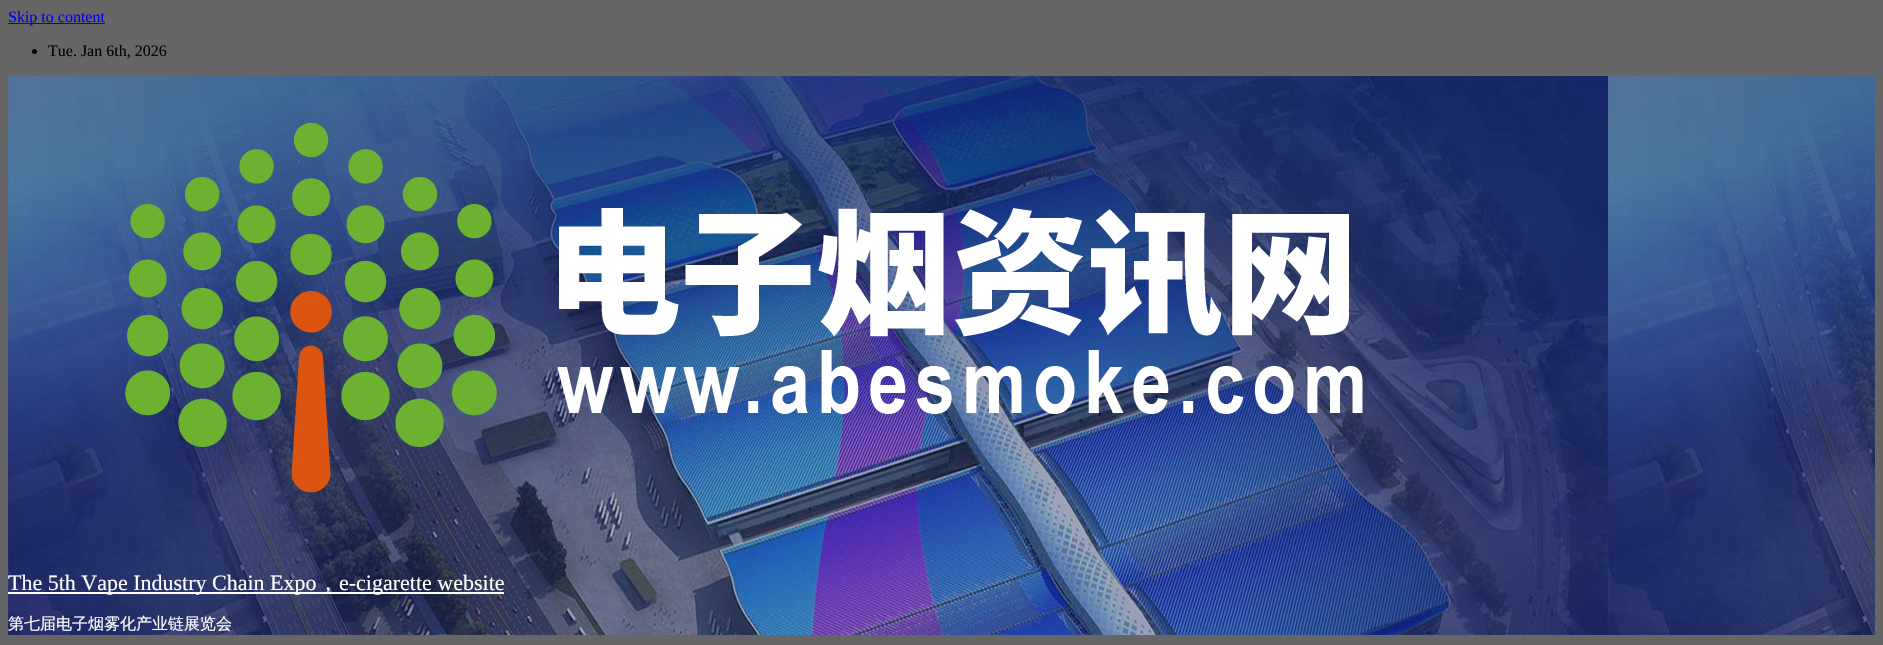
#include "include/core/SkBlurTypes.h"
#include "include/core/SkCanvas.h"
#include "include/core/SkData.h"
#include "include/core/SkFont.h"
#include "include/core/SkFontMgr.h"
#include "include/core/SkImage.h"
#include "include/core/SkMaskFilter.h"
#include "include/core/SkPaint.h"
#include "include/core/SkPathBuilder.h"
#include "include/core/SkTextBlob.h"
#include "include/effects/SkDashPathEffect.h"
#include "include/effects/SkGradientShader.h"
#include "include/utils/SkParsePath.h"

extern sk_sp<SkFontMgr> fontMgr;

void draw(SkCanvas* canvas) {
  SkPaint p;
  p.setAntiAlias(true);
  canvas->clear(SkColorSetRGB(102, 102, 102));
  p.setColor(SkColorSetRGB(0, 0, 238));
  canvas->drawRect(SkRect::MakeLTRB(8, 23, 105, 24), p);
  p.setColor(SK_ColorBLACK);
  canvas->drawCircle(34.5f, 51.5f, 2.5f, p);
  canvas->drawImageRect(SkImages::DeferredFromEncodedData(SkData::MakeFromFileName("images/1.png")), SkRect::MakeLTRB(8, 76, 1875, 635), SkSamplingOptions());
  canvas->drawImageRect(SkImages::DeferredFromEncodedData(SkData::MakeFromFileName("images/2.png")), SkRect::MakeLTRB(125, 122, 1363, 493), SkSamplingOptions());
  p.setColor(SK_ColorWHITE);
  canvas->drawRect(SkRect::MakeLTRB(8, 592, 504, 594), p);
  SkFont font1(fontMgr->matchFamilyStyle("Liberation Serif", SkFontStyle::Normal()), 16);
  font1.setSubpixel(true);
  p.setColor(SkColorSetRGB(0, 0, 238));
  canvas->drawString("Skip to content", 8, 22, font1, p);
  p.setColor(SK_ColorBLACK);
  canvas->drawString("Tue. Jan 6th, 2026", 48, 56, font1, p);
  SkFont font2(fontMgr->matchFamilyStyle("Liberation Serif", SkFontStyle::Normal()), 22);
  font2.setSubpixel(true);
  p.setColor(SK_ColorWHITE);
  canvas->drawString("The 5th Vape Industry Chain Expo", 8, 590, font2, p);
  SkFont font3(fontMgr->matchFamilyStyle("WenQuanYi Zen Hei", SkFontStyle(500, SkFontStyle::kNormal_Width, SkFontStyle::kUpright_Slant)), 22);
  font3.setSubpixel(true);
  canvas->drawString("，", 317, 590, font3, p);
  canvas->drawString("e-cigarette website", 339, 590, font2, p);
  SkFont font4(fontMgr->matchFamilyStyle("WenQuanYi Zen Hei", SkFontStyle(500, SkFontStyle::kNormal_Width, SkFontStyle::kUpright_Slant)), 16);
  font4.setSubpixel(true);
  canvas->drawString("第七届电子烟雾化产业链展览会", 8, 629, font4, p);
}
